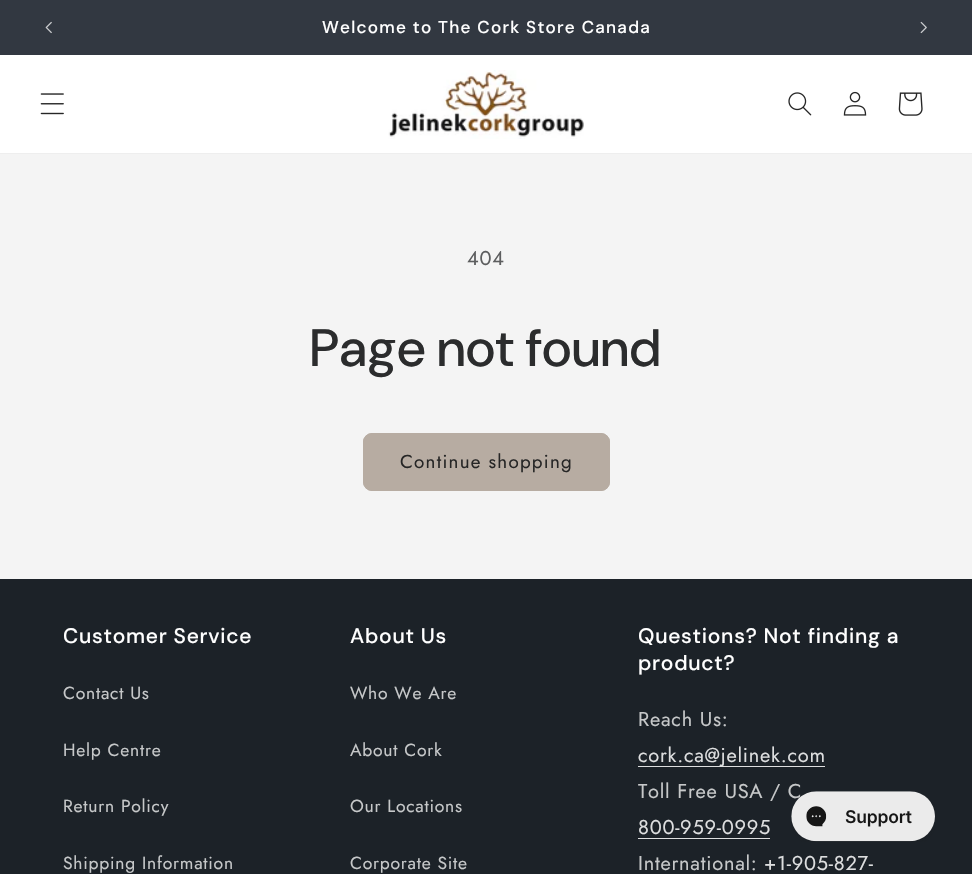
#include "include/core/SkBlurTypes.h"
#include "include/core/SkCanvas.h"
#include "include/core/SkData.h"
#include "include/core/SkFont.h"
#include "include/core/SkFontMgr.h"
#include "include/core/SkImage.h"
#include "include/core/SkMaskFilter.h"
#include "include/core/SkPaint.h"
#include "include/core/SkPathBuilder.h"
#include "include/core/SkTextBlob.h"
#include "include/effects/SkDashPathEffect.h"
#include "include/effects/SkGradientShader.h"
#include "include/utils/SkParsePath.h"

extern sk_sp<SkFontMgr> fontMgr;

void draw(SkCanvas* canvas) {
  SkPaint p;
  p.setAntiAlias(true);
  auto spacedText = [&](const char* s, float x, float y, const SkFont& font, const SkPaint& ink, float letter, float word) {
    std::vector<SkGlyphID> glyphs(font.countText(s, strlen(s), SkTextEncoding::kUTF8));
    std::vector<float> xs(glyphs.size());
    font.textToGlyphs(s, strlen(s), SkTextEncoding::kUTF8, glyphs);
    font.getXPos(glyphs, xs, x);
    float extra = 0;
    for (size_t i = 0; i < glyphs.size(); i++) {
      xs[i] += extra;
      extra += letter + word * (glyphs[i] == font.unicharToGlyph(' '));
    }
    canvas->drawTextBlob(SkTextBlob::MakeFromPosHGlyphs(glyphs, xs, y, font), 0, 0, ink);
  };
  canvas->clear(SkColorSetRGB(244, 244, 244));
  p.setColor(SkColorSetRGB(50, 56, 65));
  canvas->drawRect(SkRect::MakeLTRB(0, 0, 972, 55), p);
  canvas->drawImageRect(SkImages::DeferredFromEncodedData(SkData::MakeFromFileName("images/1.png")), SkRect::MakeLTRB(45, 21, 52, 34), SkSamplingOptions());
  canvas->drawImageRect(SkImages::DeferredFromEncodedData(SkData::MakeFromFileName("images/2.png")), SkRect::MakeLTRB(920, 21, 927, 34), SkSamplingOptions());
  p.setColor(SK_ColorWHITE);
  canvas->drawRect(SkRect::MakeLTRB(0, 55, 972, 153), p);
  p.setColor(SkColorSetRGB(238, 238, 238));
  canvas->drawRect(SkRect::MakeLTRB(0, 153, 972, 154), p);
  canvas->drawImageRect(SkImages::DeferredFromEncodedData(SkData::MakeFromFileName("images/3.png")), SkRect::MakeLTRB(40, 93, 64, 115), SkSamplingOptions());
  canvas->drawImageRect(SkImages::DeferredFromEncodedData(SkData::MakeFromFileName("images/4.png")), SkRect::MakeLTRB(388, 70, 584, 139), SkSamplingOptions());
  canvas->drawImageRect(SkImages::DeferredFromEncodedData(SkData::MakeFromFileName("images/5.png")), SkRect::MakeLTRB(788, 92, 812, 116), SkSamplingOptions());
  canvas->drawImageRect(SkImages::DeferredFromEncodedData(SkData::MakeFromFileName("images/6.png")), SkRect::MakeLTRB(843, 91, 867, 116), SkSamplingOptions());
  canvas->drawImageRect(SkImages::DeferredFromEncodedData(SkData::MakeFromFileName("images/7.png")), SkRect::MakeLTRB(898, 92, 923, 116), SkSamplingOptions());
  p.setColor(SkColorSetRGB(183, 172, 162));
  canvas->drawRoundRect(SkRect::MakeLTRB(363, 433, 610, 491), 9, 9, p);
  p.setStyle(SkPaint::kStroke_Style);
  p.setStrokeWidth(1);
  canvas->drawRoundRect(SkRect::MakeLTRB(363.5f, 433.5f, 609.5f, 490.5f), 8.5f, 8.5f, p);
  p.setStyle(SkPaint::kFill_Style);
  p.setColor(SkColorSetRGB(28, 34, 40));
  canvas->drawRect(SkRect::MakeLTRB(0, 579, 972, 874), p);
  p.setColor(SkColorSetRGB(221, 222, 223));
  canvas->drawRect(SkRect::MakeLTRB(638, 766, 825, 767), p);
  canvas->drawRect(SkRect::MakeLTRB(638, 838, 770, 839), p);
  SkFont font1(fontMgr->matchFamilyStyle("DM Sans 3", SkFontStyle(500, SkFontStyle::kNormal_Width, SkFontStyle::kUpright_Slant)), 17.1f);
  font1.setSubpixel(true);
  p.setColor(SK_ColorWHITE);
  spacedText("Welcome to The Cork Store Canada", 322, 33, font1, p, 1.25f, 0);
  SkFont font2(fontMgr->matchFamilyStyle("Jost", SkFontStyle::Normal()), 20);
  font2.setSubpixel(true);
  p.setColor(SkColorSetRGB(93, 94, 95));
  spacedText("404", 467, 265, font2, p, 0.75f, 0);
  SkFont font3(fontMgr->matchFamilyStyle("DM Sans", SkFontStyle(500, SkFontStyle::kNormal_Width, SkFontStyle::kUpright_Slant)), 52.5f);
  font3.setSubpixel(true);
  p.setColor(SkColorSetRGB(43, 44, 45));
  spacedText("Page not found", 310, 366, font3, p, 0.75f, 0);
  SkFont font4(fontMgr->matchFamilyStyle("Jost", SkFontStyle::Normal()), 18.75f);
  font4.setSubpixel(true);
  p.setColor(SkColorSetRGB(38, 38, 38));
  spacedText("Continue shopping", 400, 468, font4, p, 1.25f, 0);
  SkFont font5(fontMgr->matchFamilyStyle("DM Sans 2", SkFontStyle(500, SkFontStyle::kNormal_Width, SkFontStyle::kUpright_Slant)), 21);
  font5.setSubpixel(true);
  p.setColor(SK_ColorWHITE);
  spacedText("Customer Service", 63, 643, font5, p, 0.75f, 0);
  SkFont font6(fontMgr->matchFamilyStyle("Jost", SkFontStyle::Normal()), 17.5f);
  font6.setSubpixel(true);
  p.setColor(SkColorSetRGB(198, 200, 201));
  spacedText("Contact Us", 63, 699, font6, p, 0.75f, 0);
  spacedText("Help Centre", 63, 756, font6, p, 0.75f, 0);
  spacedText("Return Policy", 63, 812, font6, p, 0.75f, 0);
  spacedText("Shipping Information", 63, 869, font6, p, 0.75f, 0);
  p.setColor(SK_ColorWHITE);
  spacedText("About Us", 350, 643, font5, p, 0.75f, 0);
  p.setColor(SkColorSetRGB(198, 200, 201));
  spacedText("Who We Are", 350, 699, font6, p, 0.75f, 0);
  spacedText("About Cork", 350, 756, font6, p, 0.75f, 0);
  spacedText("Our Locations", 350, 812, font6, p, 0.75f, 0);
  spacedText("Corporate Site", 350, 869, font6, p, 0.75f, 0);
  p.setColor(SK_ColorWHITE);
  spacedText("Questions? Not finding a", 638, 643, font5, p, 0.75f, 0);
  spacedText("product?", 638, 670, font5, p, 0.75f, 0);
  p.setColor(SkColorSetRGB(198, 200, 201));
  spacedText("Reach Us:", 638, 726, font2, p, 0.75f, 0);
  p.setColor(SkColorSetRGB(221, 222, 223));
  spacedText("cork.ca@jelinek.com", 638, 762, font2, p, 0.75f, 0);
  p.setColor(SkColorSetRGB(198, 200, 201));
  spacedText("Toll Free USA / C", 638, 798, font2, p, 0.75f, 0);
  p.setColor(SkColorSetRGB(221, 222, 223));
  spacedText("800-959-0995", 638, 834, font2, p, 0.75f, 0);
  p.setColor(SkColorSetRGB(198, 200, 201));
  spacedText("International:", 638, 870, font2, p, 0.75f, 0);
  p.setColor(SkColorSetRGB(221, 222, 223));
  spacedText("+1-905-827-", 764, 870, font2, p, 0.75f, 0);
  canvas->drawImageRect(SkImages::DeferredFromEncodedData(SkData::MakeFromFileName("images/8.png")), SkRect::MakeLTRB(791, 791, 935, 842), SkSamplingOptions());
}
